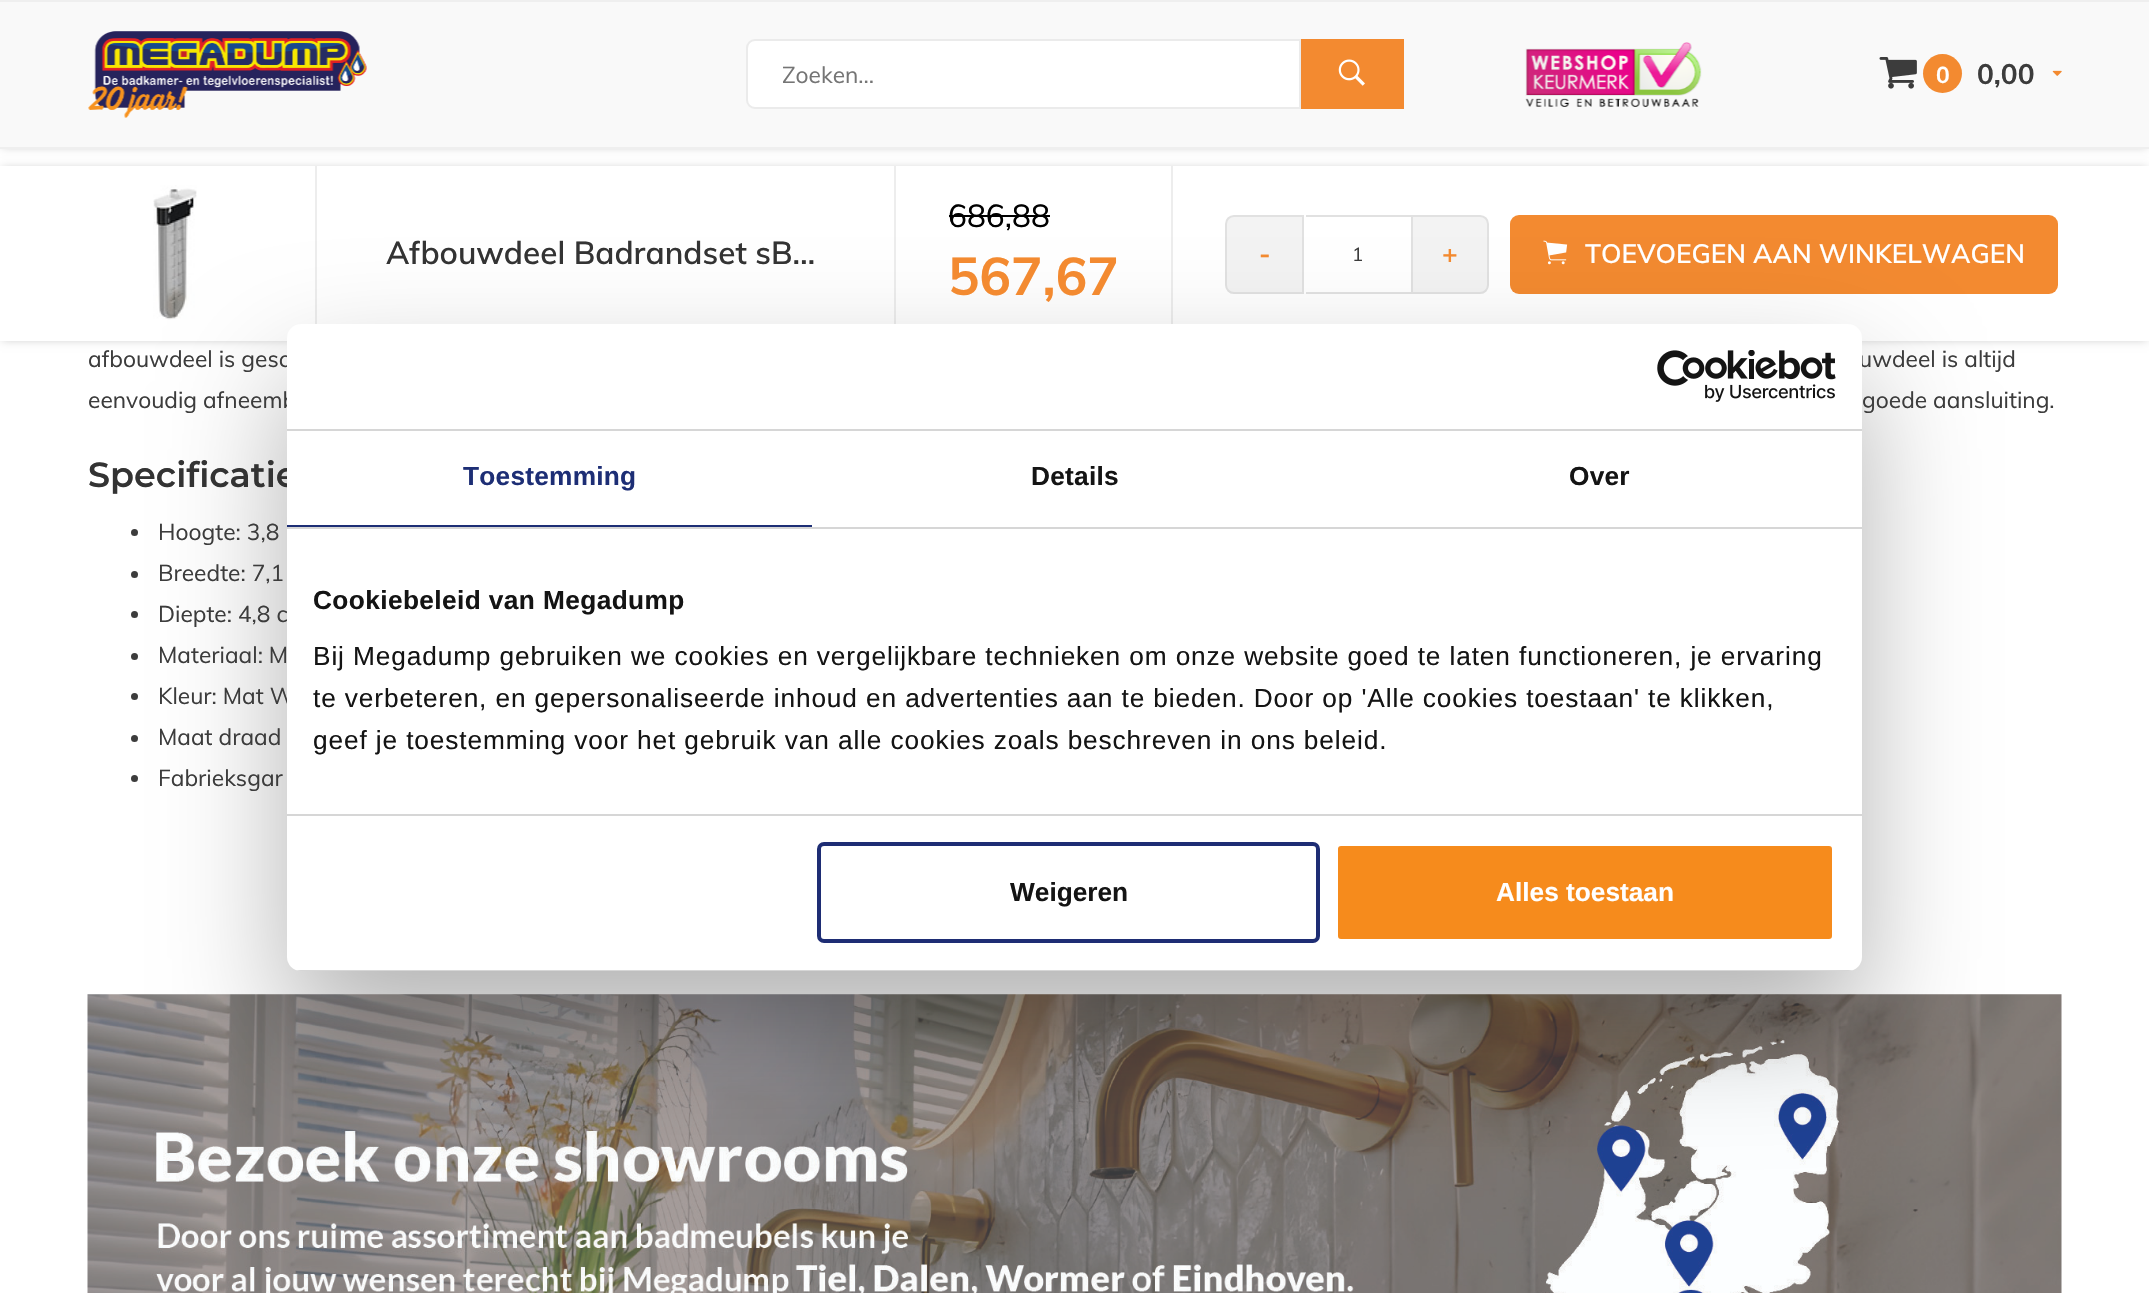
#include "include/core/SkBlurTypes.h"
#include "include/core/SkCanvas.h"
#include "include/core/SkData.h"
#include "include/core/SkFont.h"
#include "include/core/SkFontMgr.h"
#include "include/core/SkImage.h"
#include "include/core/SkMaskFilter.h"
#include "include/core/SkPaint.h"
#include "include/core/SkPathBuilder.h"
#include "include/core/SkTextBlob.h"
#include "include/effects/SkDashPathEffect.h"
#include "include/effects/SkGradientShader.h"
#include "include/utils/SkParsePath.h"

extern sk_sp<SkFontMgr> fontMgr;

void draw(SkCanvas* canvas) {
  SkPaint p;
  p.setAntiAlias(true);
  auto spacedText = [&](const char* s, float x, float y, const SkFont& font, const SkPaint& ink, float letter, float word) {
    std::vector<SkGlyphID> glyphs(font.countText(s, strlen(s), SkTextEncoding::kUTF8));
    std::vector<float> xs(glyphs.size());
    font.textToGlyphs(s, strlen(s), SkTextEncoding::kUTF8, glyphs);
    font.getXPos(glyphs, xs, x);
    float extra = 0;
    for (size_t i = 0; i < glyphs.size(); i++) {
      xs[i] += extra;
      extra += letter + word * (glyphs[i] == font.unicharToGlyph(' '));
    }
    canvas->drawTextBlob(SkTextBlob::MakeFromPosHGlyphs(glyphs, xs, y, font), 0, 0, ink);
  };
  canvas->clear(SK_ColorWHITE);
  p.setColor(SkColorSetARGB(51, 0, 0, 0));
  p.setMaskFilter(SkMaskFilter::MakeBlur(kNormal_SkBlurStyle, 4.5f));
  canvas->drawRect(SkRect::MakeLTRB(2, 2, 2147, 147), p);
  p.setMaskFilter(nullptr);
  p.setColor(SkColorSetRGB(249, 249, 249));
  canvas->drawRect(SkRect::MakeLTRB(0, 2, 2149, 147), p);
  p.setColor(SkColorSetRGB(239, 239, 239));
  canvas->drawRect(SkRect::MakeLTRB(0, 0, 2149, 2), p);
  canvas->drawRect(SkRect::MakeLTRB(0, 147, 2149, 149), p);
  canvas->drawImageRect(SkImages::DeferredFromEncodedData(SkData::MakeFromFileName("images/1.png")), SkRect::MakeLTRB(88, 31, 367, 118), SkSamplingOptions());
  p.setColor(SK_ColorWHITE);
  canvas->drawRoundRect(SkRect::MakeLTRB(747, 40, 1403, 108), 8, 8, p);
  p.setStyle(SkPaint::kStroke_Style);
  p.setStrokeWidth(2);
  p.setColor(SkColorSetRGB(235, 235, 235));
  canvas->drawRoundRect(SkRect::MakeLTRB(747, 40, 1403, 108), 8, 8, p);
  p.setStyle(SkPaint::kFill_Style);
  p.setColor(SkColorSetRGB(243, 138, 48));
  canvas->drawRect(SkRect::MakeLTRB(1301, 39, 1404, 109), p);
  p.setColor(SkColorSetRGB(235, 235, 235));
  canvas->drawRect(SkRect::MakeLTRB(1299, 39, 1301, 109), p);
  canvas->drawImageRect(SkImages::DeferredFromEncodedData(SkData::MakeFromFileName("images/2.png")), SkRect::MakeLTRB(1338, 59, 1365, 86), SkSamplingOptions());
  canvas->drawImageRect(SkImages::DeferredFromEncodedData(SkData::MakeFromFileName("images/3.png")), SkRect::MakeLTRB(1525, 42, 1702, 107), SkSamplingOptions());
  canvas->drawImageRect(SkImages::DeferredFromEncodedData(SkData::MakeFromFileName("images/4.png")), SkRect::MakeLTRB(1879, 57, 1917, 89), SkSamplingOptions());
  p.setColor(SkColorSetRGB(243, 138, 48));
  canvas->drawCircle(1942.5f, 73.5f, 19.5f, p);
  canvas->drawImageRect(SkImages::DeferredFromEncodedData(SkData::MakeFromFileName("images/5.png")), SkRect::MakeLTRB(2052, 70, 2062, 76), SkSamplingOptions());
  p.setColor(SkColorSetARGB(51, 0, 0, 0));
  p.setMaskFilter(SkMaskFilter::MakeBlur(kNormal_SkBlurStyle, 4.5f));
  canvas->drawRect(SkRect::MakeLTRB(2, 168, 2147, 340), p);
  p.setMaskFilter(nullptr);
  p.setColor(SK_ColorWHITE);
  canvas->drawRect(SkRect::MakeLTRB(0, 166, 2149, 341), p);
  canvas->drawImageRect(SkImages::DeferredFromEncodedData(SkData::MakeFromFileName("images/6.png")), SkRect::MakeLTRB(153, 185, 197, 320), SkSamplingOptions());
  p.setColor(SkColorSetRGB(237, 237, 237));
  canvas->drawRect(SkRect::MakeLTRB(315, 166, 317, 324), p);
  canvas->drawRect(SkRect::MakeLTRB(894, 166, 896, 324), p);
  p.setColor(SK_ColorBLACK);
  canvas->drawRect(SkRect::MakeLTRB(949, 215, 1050, 217), p);
  p.setColor(SkColorSetRGB(237, 237, 237));
  canvas->drawRect(SkRect::MakeLTRB(1171, 166, 1173, 324), p);
  p.setColor(SkColorSetRGB(243, 243, 243));
  canvas->drawPath(SkPathBuilder().moveTo(1234, 216).lineTo(1303, 216).lineTo(1303, 293).lineTo(1234, 293).cubicTo(1229.5f, 293, 1226, 289.5f, 1226, 285).lineTo(1226, 224).cubicTo(1226, 219.5f, 1229.5f, 216, 1234, 216).close().detach(), p);
  p.setStyle(SkPaint::kStroke_Style);
  p.setColor(SkColorSetRGB(225, 225, 225));
  canvas->drawPath(SkPathBuilder().moveTo(1234, 216).lineTo(1303, 216).lineTo(1303, 293).lineTo(1234, 293).cubicTo(1229.5f, 293, 1226, 289.5f, 1226, 285).lineTo(1226, 224).cubicTo(1226, 219.5f, 1229.5f, 216, 1234, 216).close().detach(), p);
  p.setStyle(SkPaint::kFill_Style);
  canvas->drawRect(SkRect::MakeLTRB(1306, 215, 1411, 217), p);
  canvas->drawRect(SkRect::MakeLTRB(1306, 292, 1411, 294), p);
  p.setColor(SkColorSetRGB(243, 243, 243));
  canvas->drawPath(SkPathBuilder().moveTo(1412, 216).lineTo(1480, 216).cubicTo(1484.5f, 216, 1488, 219.5f, 1488, 224).lineTo(1488, 285).cubicTo(1488, 289.5f, 1484.5f, 293, 1480, 293).lineTo(1412, 293).close().detach(), p);
  p.setStyle(SkPaint::kStroke_Style);
  p.setColor(SkColorSetRGB(225, 225, 225));
  canvas->drawPath(SkPathBuilder().moveTo(1412, 216).lineTo(1480, 216).cubicTo(1484.5f, 216, 1488, 219.5f, 1488, 224).lineTo(1488, 285).cubicTo(1488, 289.5f, 1484.5f, 293, 1480, 293).lineTo(1412, 293).close().detach(), p);
  p.setStyle(SkPaint::kFill_Style);
  p.setColor(SkColorSetRGB(243, 138, 48));
  canvas->drawRoundRect(SkRect::MakeLTRB(1510, 215, 2058, 294), 9, 9, p);
  canvas->drawImageRect(SkImages::DeferredFromEncodedData(SkData::MakeFromFileName("images/7.png")), SkRect::MakeLTRB(1543, 240, 1568, 265), SkSamplingOptions());
  p.setColor(SkColorSetRGB(60, 60, 60));
  canvas->drawCircle(134.5f, 532.5f, 3.5f, p);
  canvas->drawCircle(134.5f, 574.5f, 3.5f, p);
  canvas->drawCircle(134.5f, 614.5f, 3.5f, p);
  canvas->drawCircle(134.5f, 656.5f, 3.5f, p);
  canvas->drawCircle(134.5f, 696.5f, 3.5f, p);
  canvas->drawCircle(134.5f, 738.5f, 3.5f, p);
  canvas->drawCircle(134.5f, 778.5f, 3.5f, p);
  canvas->drawImageRect(SkImages::DeferredFromEncodedData(SkData::MakeFromFileName("images/9.png")), SkRect::MakeLTRB(87, 994, 2062, 1293), SkSamplingOptions());
  p.setColor(SkColorSetARGB(77, 0, 0, 0));
  p.setMaskFilter(SkMaskFilter::MakeBlur(kNormal_SkBlurStyle, 59.5f));
  canvas->drawRoundRect(SkRect::MakeLTRB(287, 380, 1862, 1027), 14, 14, p);
  p.setMaskFilter(nullptr);
  SkFont font1(fontMgr->matchFamilyStyle("Muli", SkFontStyle::Normal()), 22.75f);
  font1.setSubpixel(true);
  p.setColor(SkColorSetRGB(117, 117, 117));
  canvas->drawString("Zoeken...", 782, 83, font1, p);
  SkFont font2(fontMgr->matchFamilyStyle("Muli", SkFontStyle::Bold()), 22.75f);
  font2.setSubpixel(true);
  p.setColor(SK_ColorWHITE);
  canvas->drawString("0", 1936, 83, font2, p);
  SkFont font3(fontMgr->matchFamilyStyle("Muli", SkFontStyle::Bold()), 28);
  font3.setSubpixel(true);
  p.setColor(SkColorSetRGB(60, 60, 60));
  canvas->drawString("0,00", 1977, 84, font3, p);
  SkFont font4(fontMgr->matchFamilyStyle("Muli", SkFontStyle(600, SkFontStyle::kNormal_Width, SkFontStyle::kUpright_Slant)), 31.5f);
  font4.setSubpixel(true);
  p.setColor(SkColorSetRGB(51, 51, 51));
  canvas->drawString("Afbouwdeel Badrandset sB…", 386, 264, font4, p);
  SkFont font5(fontMgr->matchFamilyStyle("Muli", SkFontStyle::Normal()), 31.5f);
  font5.setSubpixel(true);
  p.setColor(SK_ColorBLACK);
  canvas->drawString("686,88", 948, 227, font5, p);
  SkFont font6(fontMgr->matchFamilyStyle("Muli", SkFontStyle::Bold()), 52.5f);
  font6.setSubpixel(true);
  p.setColor(SkColorSetRGB(243, 138, 48));
  canvas->drawString("567,67", 948, 295, font6, p);
  SkFont font7(fontMgr->matchFamilyStyle("Muli", SkFontStyle::Bold()), 26.25f);
  font7.setSubpixel(true);
  canvas->drawString("-", 1259, 263, font7, p);
  SkFont font8(fontMgr->matchFamilyStyle("Muli", SkFontStyle::Normal()), 19);
  font8.setSubpixel(true);
  p.setColor(SkColorSetRGB(60, 60, 60));
  canvas->drawString("1", 1352, 261, font8, p);
  p.setColor(SkColorSetRGB(243, 138, 48));
  canvas->drawString("+", 1442, 263, font7, p);
  SkFont font9(fontMgr->matchFamilyStyle("Muli", SkFontStyle(600, SkFontStyle::kNormal_Width, SkFontStyle::kUpright_Slant)), 26.25f);
  font9.setSubpixel(true);
  p.setColor(SK_ColorWHITE);
  canvas->drawString("TOEVOEGEN AAN WINKELWAGEN", 1585, 263, font9, p);
  p.setColor(SkColorSetRGB(60, 60, 60));
  canvas->drawString("afbouwdeel is gesc", 88, 367, font1, p);
  canvas->drawString("uwdeel is altijd", 1859, 367, font1, p);
  canvas->drawString("eenvoudig afneemb", 88, 408, font1, p);
  canvas->drawString("goede aansluiting.", 1862, 408, font1, p);
  SkFont font10(fontMgr->matchFamilyStyle("Montserrat", SkFontStyle(600, SkFontStyle::kNormal_Width, SkFontStyle::kUpright_Slant)), 35);
  font10.setSubpixel(true);
  p.setColor(SkColorSetRGB(51, 51, 51));
  canvas->drawString("Specificatie", 88, 487, font10, p);
  p.setColor(SkColorSetRGB(60, 60, 60));
  canvas->drawString("Hoogte: 3,8", 158, 540, font1, p);
  canvas->drawString("Breedte: 7,1", 158, 581, font1, p);
  canvas->drawString("Diepte: 4,8 c", 158, 622, font1, p);
  canvas->drawString("Materiaal: M", 158, 663, font1, p);
  canvas->drawString("Kleur: Mat W", 158, 704, font1, p);
  canvas->drawString("Maat draad", 158, 745, font1, p);
  canvas->drawString("Fabrieksgar", 158, 786, font1, p);
  p.setColor(SK_ColorWHITE);
  canvas->drawRoundRect(SkRect::MakeLTRB(287, 324, 1862, 971), 14, 14, p);
  p.setColor(SkColorSetRGB(214, 214, 214));
  canvas->drawRect(SkRect::MakeLTRB(287, 429, 1862, 431), p);
  canvas->drawImageRect(SkImages::DeferredFromEncodedData(SkData::MakeFromFileName("images/8.png")), SkRect::MakeLTRB(1657, 350, 1836, 402), SkSamplingOptions());
  canvas->drawRect(SkRect::MakeLTRB(287, 527, 1862, 529), p);
  p.setColor(SkColorSetRGB(29, 46, 117));
  canvas->drawRect(SkRect::MakeLTRB(287, 525, 812, 527), p);
  SkFont font11(fontMgr->matchFamilyStyle("Liberation Sans", SkFontStyle::Bold()), 26.25f);
  font11.setSubpixel(true);
  spacedText("Toestemming", 463, 485, font11, p, 0.25f, 0);
  p.setColor(SkColorSetRGB(20, 20, 20));
  spacedText("Details", 1031, 485, font11, p, 0.25f, 0);
  spacedText("Over", 1569, 485, font11, p, 0.25f, 0);
  p.setColor(SkColorSetRGB(214, 214, 214));
  canvas->drawRect(SkRect::MakeLTRB(287, 814, 1862, 816), p);
  p.setColor(SkColorSetRGB(20, 20, 20));
  spacedText("Cookiebeleid van Megadump", 313, 609, font11, p, 0.4f, 0);
  SkFont font12(fontMgr->matchFamilyStyle("Liberation Sans", SkFontStyle::Normal()), 26.25f);
  font12.setSubpixel(true);
  spacedText("Bij Megadump gebruiken we cookies en vergelijkbare technieken om onze website goed te laten functioneren, je ervaring", 313, 665, font12, p, 0.88f, 0);
  spacedText("te verbeteren, en gepersonaliseerde inhoud en advertenties aan te bieden. Door op 'Alle cookies toestaan' te klikken,", 313, 707, font12, p, 0.88f, 0);
  spacedText("geef je toestemming voor het gebruik van alle cookies zoals beschreven in ons beleid.", 313, 749, font12, p, 0.88f, 0);
  canvas->save();
  canvas->clipPath(SkPathBuilder().moveTo(301, 324).lineTo(1848, 324).cubicTo(1855.5f, 324, 1862, 330.5f, 1862, 338).lineTo(1862, 957).cubicTo(1862, 964.5f, 1855.5f, 971, 1848, 971).lineTo(301, 971).cubicTo(293.5f, 971, 287, 964.5f, 287, 957).lineTo(287, 338).cubicTo(287, 330.5f, 293.5f, 324, 301, 324).close().detach(), true);
  p.setColor(SkColorSetRGB(214, 214, 214));
  canvas->drawRect(SkRect::MakeLTRB(296, 970, 1853, 971), p);
  canvas->restore();
  p.setStyle(SkPaint::kStroke_Style);
  p.setStrokeWidth(4);
  p.setColor(SkColorSetRGB(30, 45, 116));
  canvas->drawRoundRect(SkRect::MakeLTRB(819, 844, 1318, 941), 5, 5, p);
  p.setStyle(SkPaint::kFill_Style);
  p.setColor(SkColorSetRGB(20, 20, 20));
  canvas->drawString("Weigeren", 1010, 901, font11, p);
  p.setColor(SkColorSetRGB(246, 139, 28));
  canvas->drawRoundRect(SkRect::MakeLTRB(1336, 844, 1834, 941), 5, 5, p);
  p.setStyle(SkPaint::kStroke_Style);
  p.setColor(SK_ColorWHITE);
  canvas->drawRoundRect(SkRect::MakeLTRB(1336, 844, 1834, 941), 5, 5, p);
  p.setStyle(SkPaint::kFill_Style);
  canvas->drawString("Alles toestaan", 1496, 901, font11, p);
}
